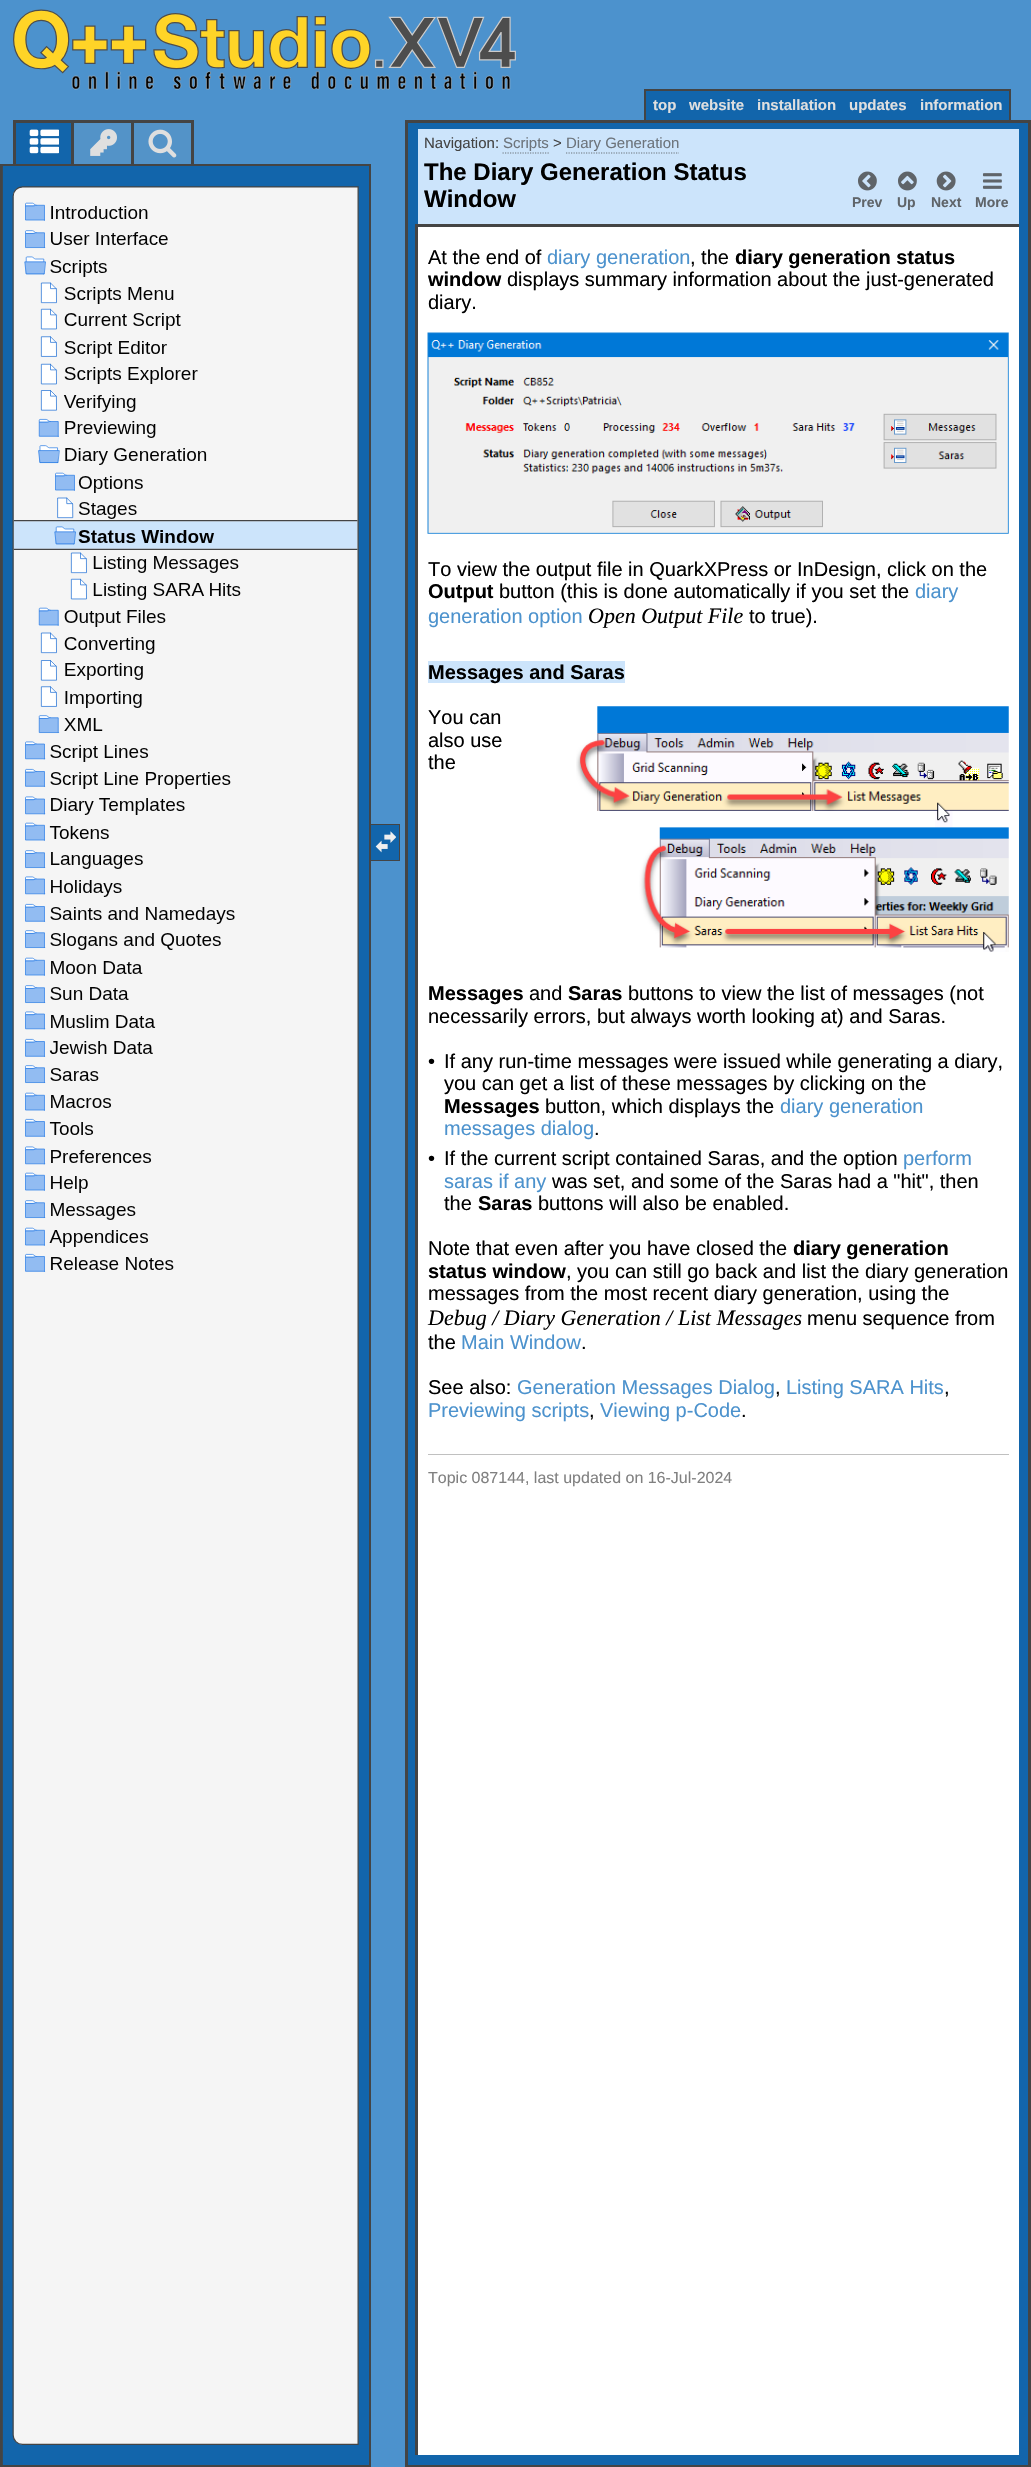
#include "include/core/SkBlurTypes.h"
#include "include/core/SkCanvas.h"
#include "include/core/SkData.h"
#include "include/core/SkFont.h"
#include "include/core/SkFontMgr.h"
#include "include/core/SkImage.h"
#include "include/core/SkMaskFilter.h"
#include "include/core/SkPaint.h"
#include "include/core/SkPathBuilder.h"
#include "include/core/SkTextBlob.h"
#include "include/effects/SkDashPathEffect.h"
#include "include/effects/SkGradientShader.h"
#include "include/utils/SkParsePath.h"

extern sk_sp<SkFontMgr> fontMgr;

void draw(SkCanvas* canvas) {
  SkPaint p;
  p.setAntiAlias(true);
  canvas->clear(SkColorSetRGB(76, 146, 205));
  canvas->drawImageRect(SkImages::DeferredFromEncodedData(SkData::MakeFromFileName("images/1.png")), SkRect::MakeLTRB(13, 9, 516, 90), SkSamplingOptions());
  p.setColor(SkColorSetRGB(18, 101, 171));
  canvas->drawRect(SkRect::MakeLTRB(406.5f, 121.5f, 1029.5f, 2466.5f), p);
  p.setStyle(SkPaint::kStroke_Style);
  p.setStrokeWidth(3);
  p.setColor(SkColorSetRGB(68, 68, 68));
  canvas->drawRect(SkRect::MakeLTRB(406.5f, 121.5f, 1029.5f, 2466.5f), p);
  canvas->drawRect(SkRect::MakeLTRB(645.5f, 90.5f, 1009.5f, 121.5f), p);
  p.setStyle(SkPaint::kFill_Style);
  p.setColor(SkColorSetRGB(18, 101, 171));
  canvas->drawRect(SkRect::MakeLTRB(646, 91, 1009, 120), p);
  p.setColor(SkColorSetRGB(68, 68, 68));
  canvas->drawRect(SkRect::MakeLTRB(13, 120, 194, 123), p);
  canvas->drawRect(SkRect::MakeLTRB(13, 120, 16, 164), p);
  p.setColor(SkColorSetRGB(18, 101, 171));
  canvas->drawRect(SkRect::MakeLTRB(16, 123, 71, 164), p);
  p.setColor(SkColorSetRGB(68, 68, 68));
  canvas->drawRect(SkRect::MakeLTRB(71, 120, 74, 164), p);
  p.setColor(SkColorSetRGB(83, 147, 200));
  canvas->drawRect(SkRect::MakeLTRB(74, 123, 131, 164), p);
  p.setColor(SkColorSetRGB(68, 68, 68));
  canvas->drawRect(SkRect::MakeLTRB(131, 120, 134, 164), p);
  p.setColor(SkColorSetRGB(83, 147, 200));
  canvas->drawRect(SkRect::MakeLTRB(134, 123, 191, 164), p);
  p.setColor(SkColorSetRGB(68, 68, 68));
  canvas->drawRect(SkRect::MakeLTRB(191, 120, 194, 164), p);
  canvas->drawImageRect(SkImages::DeferredFromEncodedData(SkData::MakeFromFileName("images/2.png")), SkRect::MakeLTRB(29, 129, 59, 154), SkSamplingOptions());
  canvas->drawImageRect(SkImages::DeferredFromEncodedData(SkData::MakeFromFileName("images/3.png")), SkRect::MakeLTRB(90, 129, 117, 156), SkSamplingOptions());
  canvas->drawImageRect(SkImages::DeferredFromEncodedData(SkData::MakeFromFileName("images/4.png")), SkRect::MakeLTRB(148, 129, 177, 158), SkSamplingOptions());
  canvas->drawRect(SkRect::MakeLTRB(369, 824, 400, 825), p);
  canvas->drawRect(SkRect::MakeLTRB(399, 824, 400, 861), p);
  canvas->drawRect(SkRect::MakeLTRB(369, 860, 400, 861), p);
  p.setStyle(SkPaint::kStroke_Style);
  canvas->drawRect(SkRect::MakeLTRB(1.5f, 165.5f, 369.5f, 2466.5f), p);
  p.setStyle(SkPaint::kFill_Style);
  p.setColor(SkColorSetRGB(18, 101, 171));
  canvas->drawRect(SkRect::MakeLTRB(3, 166, 369, 2465), p);
  canvas->drawImageRect(SkImages::DeferredFromEncodedData(SkData::MakeFromFileName("images/5.png")), SkRect::MakeLTRB(2, 166, 359, 2465), SkSamplingOptions());
  canvas->drawRect(SkRect::MakeLTRB(371, 825, 399, 860), p);
  canvas->drawImageRect(SkImages::DeferredFromEncodedData(SkData::MakeFromFileName("images/6.png")), SkRect::MakeLTRB(375, 831, 396, 853), SkSamplingOptions());
  p.setColor(SkColorSetRGB(204, 228, 251));
  canvas->drawRect(SkRect::MakeLTRB(418, 129, 1019, 224), p);
  p.setStyle(SkPaint::kStroke_Style);
  p.setStrokeWidth(1.2f);
  p.setColor(SkColorSetRGB(109, 116, 123));
  p.setPathEffect(SkDashPathEffect::Make({{1.25f, 1.25f}}, 0));
  canvas->drawPath(SkPathBuilder().moveTo(502.5f, 153).lineTo(549, 153).detach(), p);
  p.setPathEffect(nullptr);
  p.setPathEffect(SkDashPathEffect::Make({{1.25f, 1.25f}}, 0));
  canvas->drawPath(SkPathBuilder().moveTo(566, 153).lineTo(679, 153).detach(), p);
  p.setPathEffect(nullptr);
  canvas->drawImageRect(SkImages::DeferredFromEncodedData(SkData::MakeFromFileName("images/7.png")), SkRect::MakeLTRB(858, 171, 877, 191), SkSamplingOptions());
  canvas->drawImageRect(SkImages::DeferredFromEncodedData(SkData::MakeFromFileName("images/8.png")), SkRect::MakeLTRB(898, 171, 917, 191), SkSamplingOptions());
  canvas->drawImageRect(SkImages::DeferredFromEncodedData(SkData::MakeFromFileName("images/9.png")), SkRect::MakeLTRB(936, 171, 956, 191), SkSamplingOptions());
  canvas->drawImageRect(SkImages::DeferredFromEncodedData(SkData::MakeFromFileName("images/10.png")), SkRect::MakeLTRB(982, 173, 1002, 189), SkSamplingOptions());
  p.setStyle(SkPaint::kFill_Style);
  p.setColor(SK_ColorWHITE);
  canvas->drawRect(SkRect::MakeLTRB(418, 227, 1019, 2455), p);
  p.setColor(SkColorSetRGB(68, 68, 68));
  canvas->drawRect(SkRect::MakeLTRB(415, 224, 1019, 227), p);
  canvas->drawRect(SkRect::MakeLTRB(415, 224, 418, 2455), p);
  canvas->drawImageRect(SkImages::DeferredFromEncodedData(SkData::MakeFromFileName("images/11.png")), SkRect::MakeLTRB(427, 332, 1009, 534), SkSamplingOptions());
  p.setColor(SkColorSetRGB(204, 228, 251));
  canvas->drawRect(SkRect::MakeLTRB(428, 661, 625, 683), p);
  canvas->drawImageRect(SkImages::DeferredFromEncodedData(SkData::MakeFromFileName("images/12.png")), SkRect::MakeLTRB(576, 706, 1009, 952), SkSamplingOptions());
  p.setColor(SkColorSetRGB(192, 192, 192));
  canvas->drawRect(SkRect::MakeLTRB(428, 1454, 1009, 1455), p);
  SkFont font1(fontMgr->matchFamilyStyle("Liberation Sans", SkFontStyle::Bold()), 15);
  font1.setSubpixel(true);
  p.setColor(SkColorSetRGB(223, 223, 223));
  canvas->drawString("top", 653, 110, font1, p);
  canvas->drawString("website", 689, 110, font1, p);
  canvas->drawString("installation", 757, 110, font1, p);
  canvas->drawString("updates", 849, 110, font1, p);
  canvas->drawString("information", 920, 110, font1, p);
  SkFont font2(fontMgr->matchFamilyStyle("Liberation Sans", SkFontStyle::Normal()), 15);
  font2.setSubpixel(true);
  p.setColor(SkColorSetRGB(68, 68, 68));
  canvas->drawString("Navigation:", 424, 148, font2, p);
  p.setColor(SkColorSetRGB(109, 116, 123));
  canvas->drawString("Scripts", 503, 148, font2, p);
  p.setColor(SkColorSetRGB(68, 68, 68));
  canvas->drawString(">", 553, 148, font2, p);
  p.setColor(SkColorSetRGB(109, 116, 123));
  canvas->drawString("Diary Generation", 566, 148, font2, p);
  SkFont font3(fontMgr->matchFamilyStyle("Liberation Sans", SkFontStyle::Bold()), 24);
  font3.setSubpixel(true);
  p.setColor(SK_ColorBLACK);
  canvas->drawString("The Diary Generation Status", 424, 180, font3, p);
  canvas->drawString("Window", 424, 207, font3, p);
  SkFont font4(fontMgr->matchFamilyStyle("Liberation Sans", SkFontStyle::Bold()), 14);
  font4.setSubpixel(true);
  p.setColor(SkColorSetRGB(95, 100, 105));
  canvas->drawString("Prev", 852, 207, font4, p);
  canvas->drawString("Up", 897, 207, font4, p);
  canvas->drawString("Next", 931, 207, font4, p);
  canvas->drawString("More", 975, 207, font4, p);
  SkFont font5(fontMgr->matchFamilyStyle("Liberation Sans", SkFontStyle::Normal()), 20);
  font5.setSubpixel(true);
  p.setColor(SK_ColorBLACK);
  canvas->drawString("At the end of", 428, 264, font5, p);
  p.setColor(SkColorSetRGB(76, 146, 205));
  canvas->drawString("diary generation", 547, 264, font5, p);
  p.setColor(SK_ColorBLACK);
  canvas->drawString(", the", 690, 264, font5, p);
  SkFont font6(fontMgr->matchFamilyStyle("Liberation Sans", SkFontStyle::Bold()), 20);
  font6.setSubpixel(true);
  canvas->drawString("diary generation status", 735, 264, font6, p);
  canvas->drawString("window", 428, 286, font6, p);
  canvas->drawString("displays summary information about the just-generated", 507, 286, font5, p);
  canvas->drawString("diary.", 428, 309, font5, p);
  canvas->drawString("To view the output file in QuarkXPress or InDesign, click on the", 428, 576, font5, p);
  canvas->drawString("Output", 428, 598, font6, p);
  canvas->drawString("button (this is done automatically if you set the", 499, 598, font5, p);
  p.setColor(SkColorSetRGB(76, 146, 205));
  canvas->drawString("diary", 915, 598, font5, p);
  canvas->drawString("generation option", 428, 623, font5, p);
  SkFont font7(fontMgr->matchFamilyStyle("Liberation Serif", SkFontStyle::Italic()), 22);
  font7.setSubpixel(true);
  p.setColor(SK_ColorBLACK);
  canvas->drawString("Open Output File", 588, 623, font7, p);
  canvas->drawString("to true).", 749, 623, font5, p);
  canvas->drawString("Messages and Saras", 428, 679, font6, p);
  canvas->drawString("You can", 428, 724, font5, p);
  canvas->drawString("also use", 428, 747, font5, p);
  canvas->drawString("the", 428, 769, font5, p);
  canvas->drawString("Messages", 428, 1000, font6, p);
  canvas->drawString("and", 529, 1000, font5, p);
  canvas->drawString("Saras", 568, 1000, font6, p);
  canvas->drawString("buttons to view the list of messages (not", 628, 1000, font5, p);
  canvas->drawString("necessarily errors, but always worth looking at) and Saras.", 428, 1023, font5, p);
  canvas->drawString("•", 428, 1068, font5, p);
  canvas->drawString("If any run-time messages were issued while generating a diary,", 444, 1068, font5, p);
  canvas->drawString("you can get a list of these messages by clicking on the", 444, 1090, font5, p);
  canvas->drawString("Messages", 444, 1113, font6, p);
  canvas->drawString("button, which displays the", 545, 1113, font5, p);
  p.setColor(SkColorSetRGB(76, 146, 205));
  canvas->drawString("diary generation", 780, 1113, font5, p);
  canvas->drawString("messages dialog", 444, 1135, font5, p);
  p.setColor(SK_ColorBLACK);
  canvas->drawString(".", 594, 1135, font5, p);
  canvas->drawString("•", 428, 1165, font5, p);
  canvas->drawString("If the current script contained Saras, and the option", 444, 1165, font5, p);
  p.setColor(SkColorSetRGB(76, 146, 205));
  canvas->drawString("perform", 903, 1165, font5, p);
  canvas->drawString("saras if any", 444, 1188, font5, p);
  p.setColor(SK_ColorBLACK);
  canvas->drawString("was set, and some of the Saras had a \"hit\", then", 552, 1188, font5, p);
  canvas->drawString("the", 444, 1210, font5, p);
  canvas->drawString("Saras", 478, 1210, font6, p);
  canvas->drawString("buttons will also be enabled.", 538, 1210, font5, p);
  canvas->drawString("Note that even after you have closed the", 428, 1255, font5, p);
  canvas->drawString("diary generation", 793, 1255, font6, p);
  canvas->drawString("status window", 428, 1278, font6, p);
  canvas->drawString(", you can still go back and list the diary generation", 566, 1278, font5, p);
  canvas->drawString("messages from the most recent diary generation, using the", 428, 1300, font5, p);
  canvas->drawString("Debug / Diary Generation / List Messages", 428, 1325, font7, p);
  canvas->drawString("menu sequence from", 807, 1325, font5, p);
  canvas->drawString("the", 428, 1349, font5, p);
  p.setColor(SkColorSetRGB(76, 146, 205));
  canvas->drawString("Main Window", 461, 1349, font5, p);
  p.setColor(SK_ColorBLACK);
  canvas->drawString(".", 581, 1349, font5, p);
  canvas->drawString("See also:", 428, 1394, font5, p);
  p.setColor(SkColorSetRGB(76, 146, 205));
  canvas->drawString("Generation Messages Dialog", 517, 1394, font5, p);
  p.setColor(SK_ColorBLACK);
  canvas->drawString(",", 775, 1394, font5, p);
  p.setColor(SkColorSetRGB(76, 146, 205));
  canvas->drawString("Listing SARA Hits", 786, 1394, font5, p);
  p.setColor(SK_ColorBLACK);
  canvas->drawString(",", 944, 1394, font5, p);
  p.setColor(SkColorSetRGB(76, 146, 205));
  canvas->drawString("Previewing scripts", 428, 1417, font5, p);
  p.setColor(SK_ColorBLACK);
  canvas->drawString(",", 589, 1417, font5, p);
  p.setColor(SkColorSetRGB(76, 146, 205));
  canvas->drawString("Viewing p-Code", 600, 1417, font5, p);
  p.setColor(SK_ColorBLACK);
  canvas->drawString(".", 741, 1417, font5, p);
  SkFont font8(fontMgr->matchFamilyStyle("Liberation Sans", SkFontStyle::Normal()), 16);
  font8.setSubpixel(true);
  p.setColor(SkColorSetRGB(128, 128, 128));
  canvas->drawString("Topic 087144, last updated on 16-Jul-2024", 428, 1483, font8, p);
}
